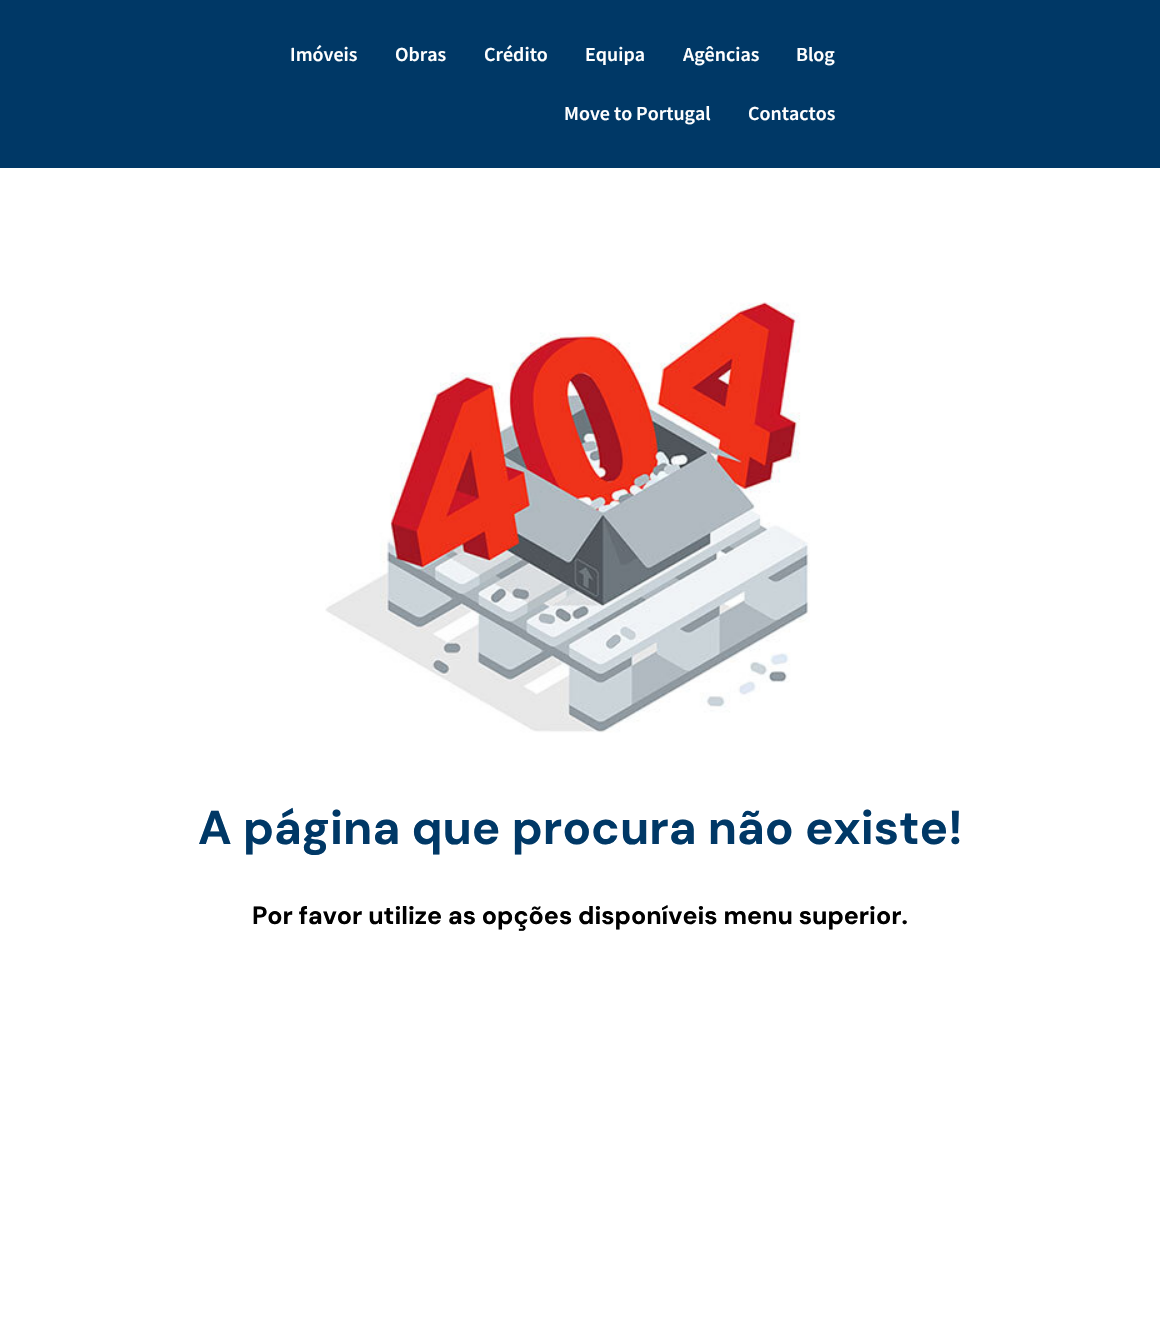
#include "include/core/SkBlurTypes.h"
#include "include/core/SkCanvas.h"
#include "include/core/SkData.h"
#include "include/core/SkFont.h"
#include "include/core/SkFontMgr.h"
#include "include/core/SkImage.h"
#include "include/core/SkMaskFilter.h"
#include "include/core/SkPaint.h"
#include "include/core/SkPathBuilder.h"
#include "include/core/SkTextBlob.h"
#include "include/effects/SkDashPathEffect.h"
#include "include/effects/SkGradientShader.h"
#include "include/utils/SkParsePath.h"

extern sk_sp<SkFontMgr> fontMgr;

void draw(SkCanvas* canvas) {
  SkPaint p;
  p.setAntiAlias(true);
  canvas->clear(SK_ColorWHITE);
  p.setColor(SkColorSetRGB(0, 56, 102));
  canvas->drawRect(SkRect::MakeLTRB(0, 0, 1160, 168), p);
  canvas->drawImageRect(SkImages::DeferredFromEncodedData(SkData::MakeFromFileName("images/1.png")), SkRect::MakeLTRB(325, 302, 810, 733), SkSamplingOptions());
  SkFont font1(fontMgr->matchFamilyStyle("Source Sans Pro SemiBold", SkFontStyle(600, SkFontStyle::kNormal_Width, SkFontStyle::kUpright_Slant)), 20);
  font1.setSubpixel(true);
  p.setColor(SK_ColorWHITE);
  canvas->drawString("Imóveis", 290, 61, font1, p);
  canvas->drawString("Obras", 395, 61, font1, p);
  canvas->drawString("Crédito", 484, 61, font1, p);
  canvas->drawString("Equipa", 585, 61, font1, p);
  canvas->drawString("Agências", 683, 61, font1, p);
  canvas->drawString("Blog", 796, 61, font1, p);
  canvas->drawString("Move to Portugal", 564, 120, font1, p);
  canvas->drawString("Contactos", 748, 120, font1, p);
  SkFont font2(fontMgr->matchFamilyStyle("DM Sans", SkFontStyle::Bold()), 47.5f);
  font2.setSubpixel(true);
  p.setColor(SkColorSetRGB(0, 56, 102));
  canvas->drawString("A página que procura não existe!", 198, 844, font2, p);
  SkFont font3(fontMgr->matchFamilyStyle("DM Sans", SkFontStyle::Bold()), 25);
  font3.setSubpixel(true);
  p.setColor(SK_ColorBLACK);
  canvas->drawString("Por favor utilize as opções disponíveis menu superior.", 252, 924, font3, p);
}
